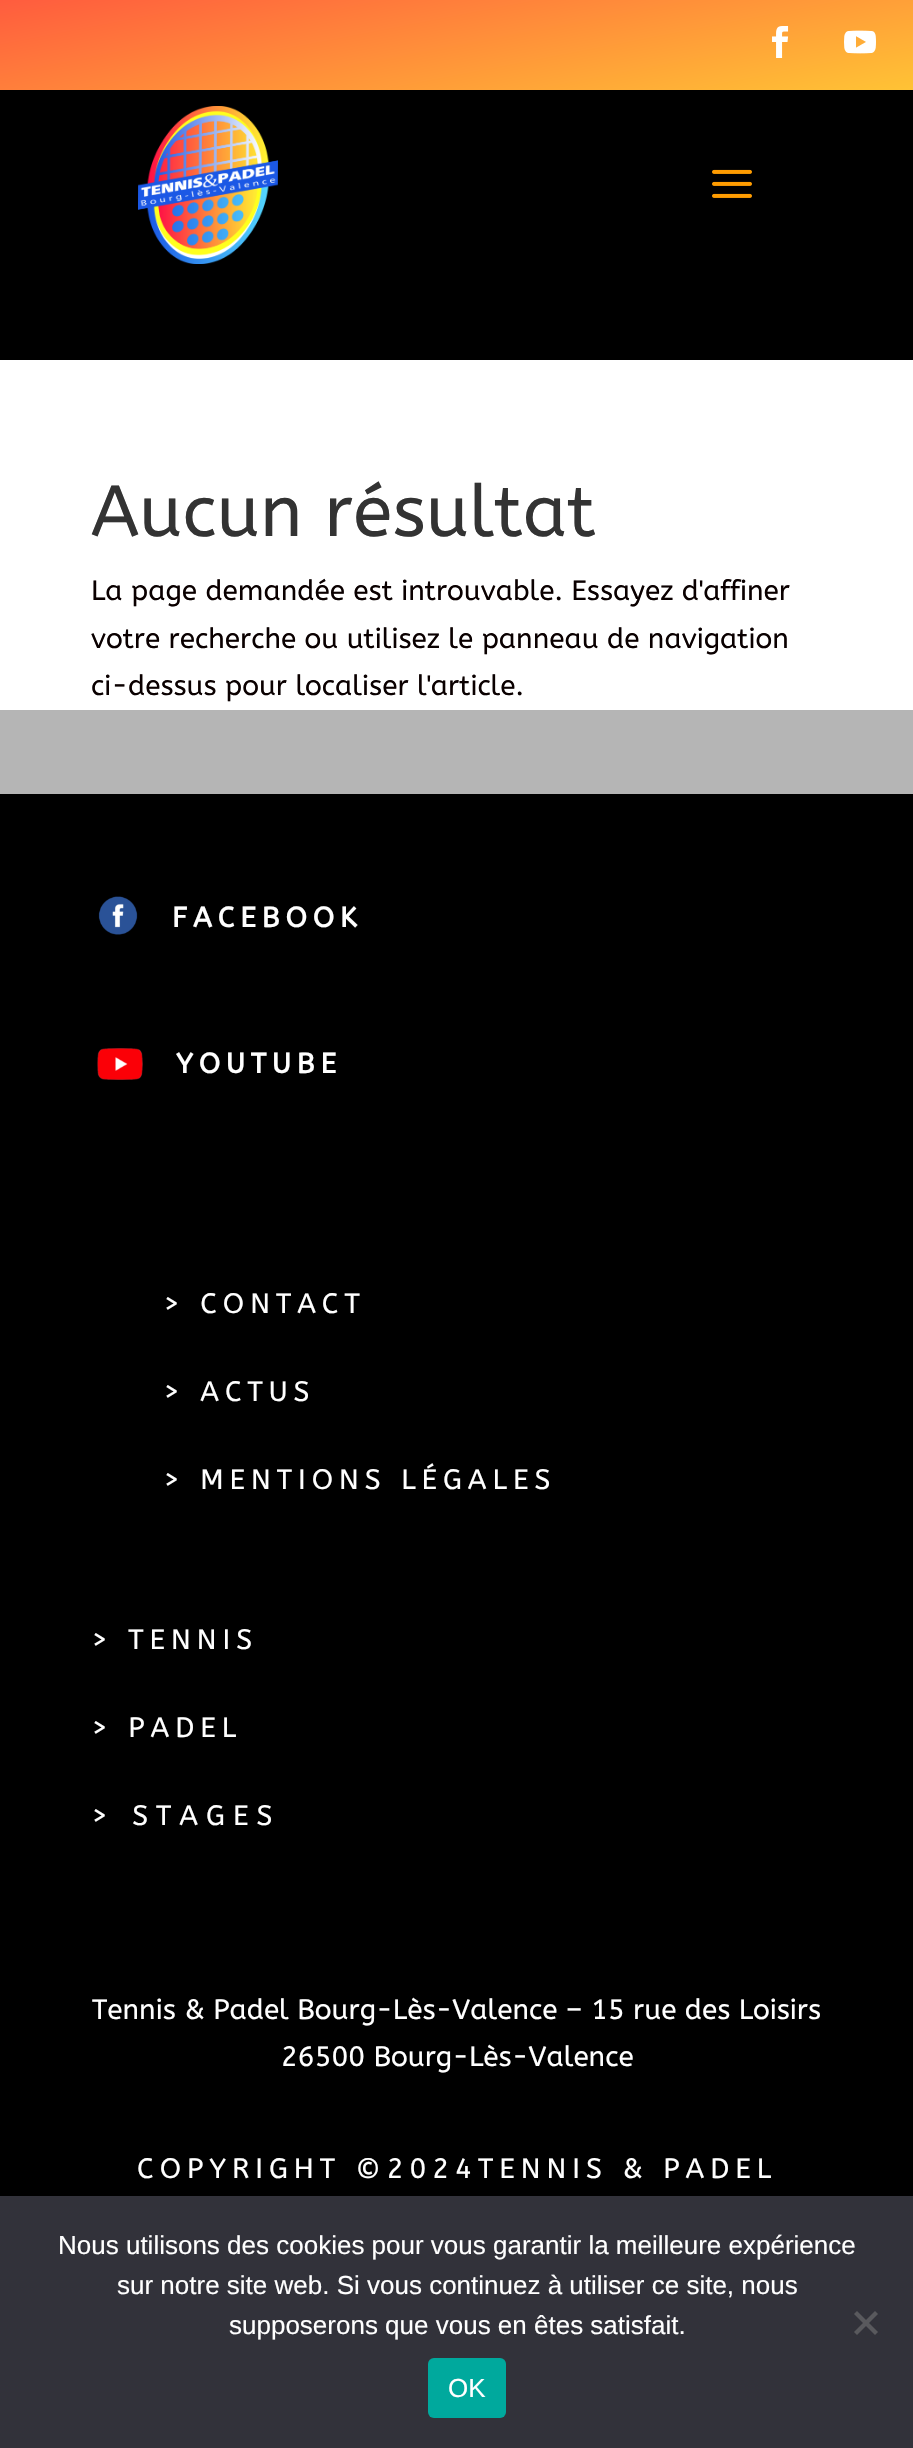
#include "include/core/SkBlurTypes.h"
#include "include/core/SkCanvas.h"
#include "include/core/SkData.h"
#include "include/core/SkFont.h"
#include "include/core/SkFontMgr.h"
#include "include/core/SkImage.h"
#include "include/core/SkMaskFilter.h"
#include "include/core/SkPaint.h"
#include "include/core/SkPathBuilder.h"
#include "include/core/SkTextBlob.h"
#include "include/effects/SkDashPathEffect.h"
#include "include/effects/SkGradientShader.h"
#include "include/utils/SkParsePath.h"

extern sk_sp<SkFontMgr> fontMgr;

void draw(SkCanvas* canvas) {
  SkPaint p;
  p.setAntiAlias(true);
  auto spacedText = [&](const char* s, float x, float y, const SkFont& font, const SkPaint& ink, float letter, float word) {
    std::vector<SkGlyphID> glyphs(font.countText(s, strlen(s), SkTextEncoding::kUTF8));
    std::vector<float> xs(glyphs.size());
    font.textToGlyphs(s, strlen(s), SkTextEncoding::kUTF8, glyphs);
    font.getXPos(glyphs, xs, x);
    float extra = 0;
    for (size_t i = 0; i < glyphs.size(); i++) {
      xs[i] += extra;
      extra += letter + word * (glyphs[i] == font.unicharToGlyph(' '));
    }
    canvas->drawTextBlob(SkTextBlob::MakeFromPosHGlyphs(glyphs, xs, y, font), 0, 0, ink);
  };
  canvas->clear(SkColorSetRGB(181, 181, 181));
  {
    const SkColor colors[] = {SkColorSetRGB(255, 195, 53), SkColorSetRGB(255, 92, 62)};
    const float stops[] = {0, 1};
    const SkPoint ends[] = {{482, 174}, {432, -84}};
    p.setShader(SkGradientShader::MakeLinear(ends, colors, stops, 2, SkTileMode::kClamp));
    p.setAlpha(255);
  }
  canvas->drawRect(SkRect::MakeLTRB(0, 0, 913, 90), p);
  canvas->drawImageRect(SkImages::DeferredFromEncodedData(SkData::MakeFromFileName("images/1.png")), SkRect::MakeLTRB(772, 26, 789, 58), SkSamplingOptions());
  canvas->drawImageRect(SkImages::DeferredFromEncodedData(SkData::MakeFromFileName("images/2.png")), SkRect::MakeLTRB(844, 30, 876, 54), SkSamplingOptions());
  p.setShader(nullptr);
  p.setColor(SK_ColorBLACK);
  canvas->drawRect(SkRect::MakeLTRB(0, 90, 913, 360), p);
  canvas->drawImageRect(SkImages::DeferredFromEncodedData(SkData::MakeFromFileName("images/3.png")), SkRect::MakeLTRB(138, 106, 278, 264), SkSamplingOptions());
  canvas->drawImageRect(SkImages::DeferredFromEncodedData(SkData::MakeFromFileName("images/4.png")), SkRect::MakeLTRB(712, 169, 752, 198), SkSamplingOptions());
  p.setColor(SK_ColorWHITE);
  canvas->drawRect(SkRect::MakeLTRB(0, 360, 913, 710), p);
  p.setColor(SK_ColorBLACK);
  canvas->drawRect(SkRect::MakeLTRB(0, 794, 913, 2196), p);
  canvas->drawImageRect(SkImages::DeferredFromEncodedData(SkData::MakeFromFileName("images/5.png")), SkRect::MakeLTRB(98, 896, 138, 935), SkSamplingOptions());
  canvas->drawImageRect(SkImages::DeferredFromEncodedData(SkData::MakeFromFileName("images/6.png")), SkRect::MakeLTRB(97, 1048, 143, 1080), SkSamplingOptions());
  p.setColor(SkColorSetRGB(50, 50, 58));
  canvas->drawRect(SkRect::MakeLTRB(0, 2196, 913, 2448), p);
  p.setColor(SkColorSetRGB(89, 89, 93));
  canvas->drawPath(SkPathBuilder().moveTo(875, 2311).lineTo(878, 2314).lineTo(857, 2335).lineTo(854, 2332).close().detach(), p);
  canvas->drawPath(SkPathBuilder().moveTo(854, 2314).lineTo(857, 2311).lineTo(878, 2332).lineTo(875, 2335).close().detach(), p);
  p.setColor(SkColorSetRGB(0, 169, 157));
  canvas->drawRoundRect(SkRect::MakeLTRB(428, 2358, 506, 2418), 6, 6, p);
  SkFont font1(fontMgr->matchFamilyStyle("ABeeZee", SkFontStyle::Normal()), 72);
  font1.setSubpixel(true);
  p.setColor(SkColorSetRGB(51, 51, 51));
  canvas->drawString("Aucun résultat", 91, 536, font1, p);
  SkFont font2(fontMgr->matchFamilyStyle("ABeeZee", SkFontStyle::Normal()), 28);
  font2.setSubpixel(true);
  p.setColor(SkColorSetRGB(10, 0, 0));
  canvas->drawString("La page demandée est introuvable. Essayez d'affiner", 91, 600, font2, p);
  canvas->drawString("votre recherche ou utilisez le panneau de navigation", 91, 648, font2, p);
  canvas->drawString("ci-dessus pour localiser l'article.", 91, 695, font2, p);
  SkFont font3(fontMgr->matchFamilyStyle("ABeeZee", SkFontStyle::Bold()), 28);
  font3.setSubpixel(true);
  p.setColor(SK_ColorWHITE);
  spacedText("FACEBOOK", 172, 927, font3, p, 6, 0);
  spacedText("YOUTUBE", 176, 1073, font3, p, 6, 0);
  spacedText("> CONTACT", 163, 1313, font2, p, 6, 0);
  spacedText("> ACTUS", 163, 1401, font2, p, 6, 0);
  spacedText("> MENTIONS LÉGALES", 163, 1489, font2, p, 6, 0);
  spacedText("> TENNIS", 91, 1649, font2, p, 6, 0);
  spacedText("> PADEL", 91, 1737, font2, p, 6, 0);
  spacedText("> STAGES", 91, 1825, font2, p, 8, 0);
  canvas->drawString("Tennis & Padel Bourg-Lès-Valence – 15 rue des Loisirs", 92, 2019, font2, p);
  canvas->drawString("26500 Bourg-Lès-Valence", 281, 2066, font2, p);
  spacedText("COPYRIGHT ©2024TENNIS & PADEL", 137, 2178, font2, p, 6, 0);
  SkFont font4(fontMgr->matchFamilyStyle("Liberation Sans", SkFontStyle::Normal()), 26);
  font4.setSubpixel(true);
  canvas->drawString("Nous utilisons des cookies pour vous garantir la meilleure expérience", 58, 2254, font4, p);
  canvas->drawString("sur notre site web. Si vous continuez à utiliser ce site, nous", 117, 2294, font4, p);
  canvas->drawString("supposerons que vous en êtes satisfait.", 229, 2334, font4, p);
  canvas->drawString("OK", 448, 2397, font4, p);
}
